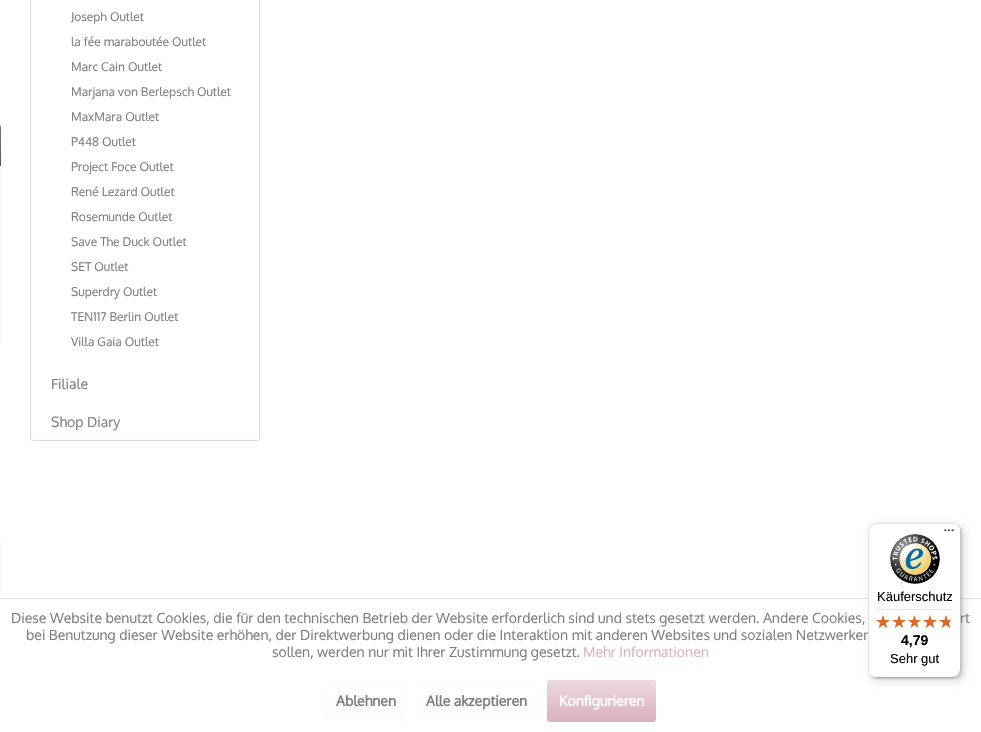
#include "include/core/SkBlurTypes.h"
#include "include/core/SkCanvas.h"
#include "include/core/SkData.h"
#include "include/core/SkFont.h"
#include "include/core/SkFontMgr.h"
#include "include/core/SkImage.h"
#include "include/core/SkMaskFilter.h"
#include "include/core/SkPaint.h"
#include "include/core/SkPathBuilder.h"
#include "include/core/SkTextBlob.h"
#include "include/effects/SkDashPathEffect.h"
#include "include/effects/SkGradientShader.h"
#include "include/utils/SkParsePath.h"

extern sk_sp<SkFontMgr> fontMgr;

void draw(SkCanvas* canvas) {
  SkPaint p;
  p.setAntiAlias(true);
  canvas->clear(SK_ColorWHITE);
  p.setColor(SkColorSetRGB(247, 247, 247));
  canvas->drawRoundRect(SkRect::MakeLTRB(-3, 124, 1, 608), 3, 3, p);
  {
    const SkColor colors[] = {SkColorSetRGB(124, 124, 123), SkColorSetRGB(86, 86, 85)};
    const float stops[] = {0, 1};
    const SkPoint ends[] = {{-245, 124}, {-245, 166}};
    p.setShader(SkGradientShader::MakeLinear(ends, colors, stops, 2, SkTileMode::kClamp));
    p.setAlpha(255);
  }
  canvas->drawPath(SkPathBuilder().moveTo(0, 124).lineTo(-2, 124).cubicTo(-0.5f, 124, 1, 125.5f, 1, 127).lineTo(1, 166).lineTo(-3, 166).lineTo(-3, 127).cubicTo(-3, 125.5f, -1.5f, 124, 0, 124).close().detach(), p);
  p.setShader(nullptr);
  p.setColor(SK_ColorWHITE);
  canvas->drawRect(SkRect::MakeLTRB(0, 345, 1, 538), p);
  p.setStyle(SkPaint::kStroke_Style);
  p.setStrokeWidth(1);
  p.setColor(SkColorSetRGB(218, 218, 229));
  canvas->drawRoundRect(SkRect::MakeLTRB(30.5f, -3.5f, 259.5f, 440.5f), 2.5f, 2.5f, p);
  p.setStyle(SkPaint::kFill_Style);
  p.setColor(SkColorSetRGB(224, 224, 224));
  canvas->drawRect(SkRect::MakeLTRB(0, 598, 981, 599), p);
  p.setColor(SkColorSetARGB(38, 0, 0, 0));
  p.setMaskFilter(SkMaskFilter::MakeBlur(kNormal_SkBlurStyle, 4));
  canvas->drawRoundRect(SkRect::MakeLTRB(871, 526, 964, 681), 8, 8, p);
  p.setMaskFilter(nullptr);
  p.setMaskFilter(SkMaskFilter::MakeBlur(kNormal_SkBlurStyle, 1));
  canvas->drawRoundRect(SkRect::MakeLTRB(869, 524, 962, 679), 8, 8, p);
  p.setMaskFilter(nullptr);
  p.setColor(SK_ColorWHITE);
  canvas->drawRect(SkRect::MakeLTRB(0, 599, 1, 607), p);
  {
    const SkColor colors[] = {SK_ColorWHITE, SkColorSetRGB(250, 250, 250)};
    const float stops[] = {0, 1};
    const SkPoint ends[] = {{366, 681}, {366, 721}};
    p.setShader(SkGradientShader::MakeLinear(ends, colors, stops, 2, SkTileMode::kClamp));
    p.setAlpha(255);
  }
  canvas->drawRoundRect(SkRect::MakeLTRB(326, 681, 406, 721), 2, 2, p);
  {
    const SkColor colors[] = {SK_ColorWHITE, SkColorSetRGB(250, 250, 250)};
    const float stops[] = {0, 1};
    const SkPoint ends[] = {{477, 681}, {477, 721}};
    p.setShader(SkGradientShader::MakeLinear(ends, colors, stops, 2, SkTileMode::kClamp));
    p.setAlpha(255);
  }
  canvas->drawRoundRect(SkRect::MakeLTRB(416, 681, 537, 721), 2, 2, p);
  {
    const SkColor colors[] = {SkColorSetRGB(238, 217, 224), SkColorSetRGB(217, 177, 190)};
    const float stops[] = {0, 1};
    const SkPoint ends[] = {{602, 680}, {602, 722}};
    p.setShader(SkGradientShader::MakeLinear(ends, colors, stops, 2, SkTileMode::kClamp));
    p.setAlpha(255);
  }
  canvas->drawRoundRect(SkRect::MakeLTRB(547, 680, 656, 722), 3, 3, p);
  SkFont font1(fontMgr->matchFamilyStyle("Oxygen", SkFontStyle::Normal()), 12);
  font1.setSubpixel(true);
  p.setShader(nullptr);
  p.setColor(SkColorSetRGB(124, 124, 123));
  canvas->drawString("Joseph Outlet", 71, 21, font1, p);
  canvas->drawString("la fée maraboutée Outlet", 71, 46, font1, p);
  canvas->drawString("Marc Cain Outlet", 71, 71, font1, p);
  canvas->drawString("Marjana von Berlepsch Outlet", 71, 96, font1, p);
  canvas->drawString("MaxMara Outlet", 71, 121, font1, p);
  canvas->drawString("P448 Outlet", 71, 146, font1, p);
  canvas->drawString("Project Foce Outlet", 71, 171, font1, p);
  canvas->drawString("René Lezard Outlet", 71, 196, font1, p);
  canvas->drawString("Rosemunde Outlet", 71, 221, font1, p);
  canvas->drawString("Save The Duck Outlet", 71, 246, font1, p);
  canvas->drawString("SET Outlet", 71, 271, font1, p);
  canvas->drawString("Superdry Outlet", 71, 296, font1, p);
  canvas->drawString("TEN117 Berlin Outlet", 71, 321, font1, p);
  canvas->drawString("Villa Gaia Outlet", 71, 346, font1, p);
  SkFont font2(fontMgr->matchFamilyStyle("Oxygen", SkFontStyle::Normal()), 14);
  font2.setSubpixel(true);
  canvas->drawString("Filiale", 51, 389, font2, p);
  canvas->drawString("Shop Diary", 51, 427, font2, p);
  canvas->drawString("Diese Website benutzt Cookies, die für den technischen Betrieb der Website erforderlich sind und stets gesetzt werden. Andere Cookies,", 11, 623, font2, p);
  canvas->drawString("rt", 960, 623, font2, p);
  canvas->drawString("bei Benutzung dieser Website erhöhen, der Direktwerbung dienen oder die Interaktion mit anderen Websites und sozialen Netzwerken", 26, 640, font2, p);
  p.setColor(SK_ColorWHITE);
  canvas->drawRoundRect(SkRect::MakeLTRB(868, 523, 961, 678), 8, 8, p);
  p.setColor(SkColorSetRGB(229, 229, 229));
  canvas->drawPath(SkPathBuilder().moveTo(877, 524).lineTo(954, 524).cubicTo(956, 524, 958, 525, 960, 527).cubicTo(958, 525, 956, 523, 953, 523).lineTo(876, 523).cubicTo(872, 523, 868, 527, 868, 531).lineTo(868, 670).cubicTo(868, 673, 870, 675, 872, 677).cubicTo(870, 675, 869, 673, 869, 671).lineTo(869, 532).cubicTo(869, 528, 873, 524, 877, 524).close().detach(), p);
  p.setColor(SkColorSetRGB(204, 204, 204));
  canvas->drawPath(SkPathBuilder().moveTo(869, 674).cubicTo(871, 676, 873, 678, 876, 678).lineTo(953, 678).cubicTo(957, 678, 961, 674, 961, 670).lineTo(961, 531).cubicTo(961, 528, 959, 526, 957, 524).cubicTo(959, 526, 960, 528, 960, 530).lineTo(960, 669).cubicTo(960, 673, 956, 677, 952, 677).lineTo(875, 677).cubicTo(873, 677, 871, 676, 869, 674).close().detach(), p);
  p.setColor(SkColorSetARGB(51, 50, 50, 50));
  canvas->drawPath(SkPathBuilder().moveTo(870, 675).cubicTo(871, 677, 874, 678, 876, 678).lineTo(953, 678).cubicTo(957, 678, 961, 674, 961, 670).lineTo(961, 531).cubicTo(961, 529, 960, 526, 958, 525).cubicTo(959, 526, 960, 528, 960, 530).lineTo(960, 669).cubicTo(960, 674, 957, 677, 952, 677).lineTo(875, 677).cubicTo(873, 677, 871, 676, 870, 675).close().detach(), p);
  p.setColor(SkColorSetARGB(77, 255, 255, 255));
  canvas->drawPath(SkPathBuilder().moveTo(952, 678).lineTo(953, 678).cubicTo(957, 678, 961, 674, 961, 670).lineTo(961, 531).cubicTo(961, 529, 960, 526, 958, 525).cubicTo(959, 526, 960, 528, 960, 530).lineTo(960, 670).cubicTo(960, 674, 957, 678, 952, 678).close().detach(), p);
  canvas->drawImageRect(SkImages::DeferredFromEncodedData(SkData::MakeFromFileName("images/1.png")), SkRect::MakeLTRB(944, 529, 954, 532), SkSamplingOptions());
  canvas->drawImageRect(SkImages::DeferredFromEncodedData(SkData::MakeFromFileName("images/3.png")), SkRect::MakeLTRB(939, 615, 953, 628), SkSamplingOptions());
  canvas->drawImageRect(SkImages::DeferredFromEncodedData(SkData::MakeFromFileName("images/7.png")), SkRect::MakeLTRB(939, 615, 950, 628), SkSamplingOptions());
  canvas->drawImageRect(SkImages::DeferredFromEncodedData(SkData::MakeFromFileName("images/3.png")), SkRect::MakeLTRB(923, 615, 937, 628), SkSamplingOptions());
  canvas->drawImageRect(SkImages::DeferredFromEncodedData(SkData::MakeFromFileName("images/5.png")), SkRect::MakeLTRB(923, 615, 937, 628), SkSamplingOptions());
  canvas->drawImageRect(SkImages::DeferredFromEncodedData(SkData::MakeFromFileName("images/4.png")), SkRect::MakeLTRB(908, 615, 921, 628), SkSamplingOptions());
  canvas->drawImageRect(SkImages::DeferredFromEncodedData(SkData::MakeFromFileName("images/6.png")), SkRect::MakeLTRB(908, 615, 921, 628), SkSamplingOptions());
  canvas->drawImageRect(SkImages::DeferredFromEncodedData(SkData::MakeFromFileName("images/3.png")), SkRect::MakeLTRB(892, 615, 906, 628), SkSamplingOptions());
  canvas->drawImageRect(SkImages::DeferredFromEncodedData(SkData::MakeFromFileName("images/5.png")), SkRect::MakeLTRB(892, 615, 906, 628), SkSamplingOptions());
  canvas->drawImageRect(SkImages::DeferredFromEncodedData(SkData::MakeFromFileName("images/3.png")), SkRect::MakeLTRB(876, 615, 890, 628), SkSamplingOptions());
  canvas->drawImageRect(SkImages::DeferredFromEncodedData(SkData::MakeFromFileName("images/5.png")), SkRect::MakeLTRB(876, 615, 890, 628), SkSamplingOptions());
  SkFont font3(fontMgr->matchFamilyStyle("Liberation Sans", SkFontStyle::Normal()), 13);
  font3.setSubpixel(true);
  p.setColor(SK_ColorBLACK);
  canvas->drawString("Sehr gut", 890, 663, font3, p);
  SkFont font4(fontMgr->matchFamilyStyle("Liberation Sans", SkFontStyle::Bold()), 14);
  font4.setSubpixel(true);
  canvas->drawString("4,79", 901, 645, font4, p);
  canvas->drawString("Käuferschutz", 877, 601, font3, p);
  canvas->drawImageRect(SkImages::DeferredFromEncodedData(SkData::MakeFromFileName("images/2.png")), SkRect::MakeLTRB(890, 534, 940, 584), SkSamplingOptions());
  p.setColor(SkColorSetRGB(229, 229, 229));
  canvas->drawRect(SkRect::MakeLTRB(876, 609, 953, 610), p);
  p.setColor(SkColorSetRGB(124, 124, 123));
  canvas->drawString("sollen, werden nur mit Ihrer Zustimmung gesetzt.", 272, 657, font2, p);
  p.setColor(SkColorSetRGB(217, 177, 190));
  canvas->drawString("Mehr Informationen", 583, 657, font2, p);
  SkFont font5(fontMgr->matchFamilyStyle("Oxygen", SkFontStyle::Bold()), 14);
  font5.setSubpixel(true);
  p.setColor(SkColorSetRGB(124, 124, 123));
  canvas->drawString("Ablehnen", 336, 706, font5, p);
  canvas->drawString("Alle akzeptieren", 426, 706, font5, p);
  p.setColor(SK_ColorWHITE);
  canvas->drawString("Konfigurieren", 559, 706, font5, p);
}
